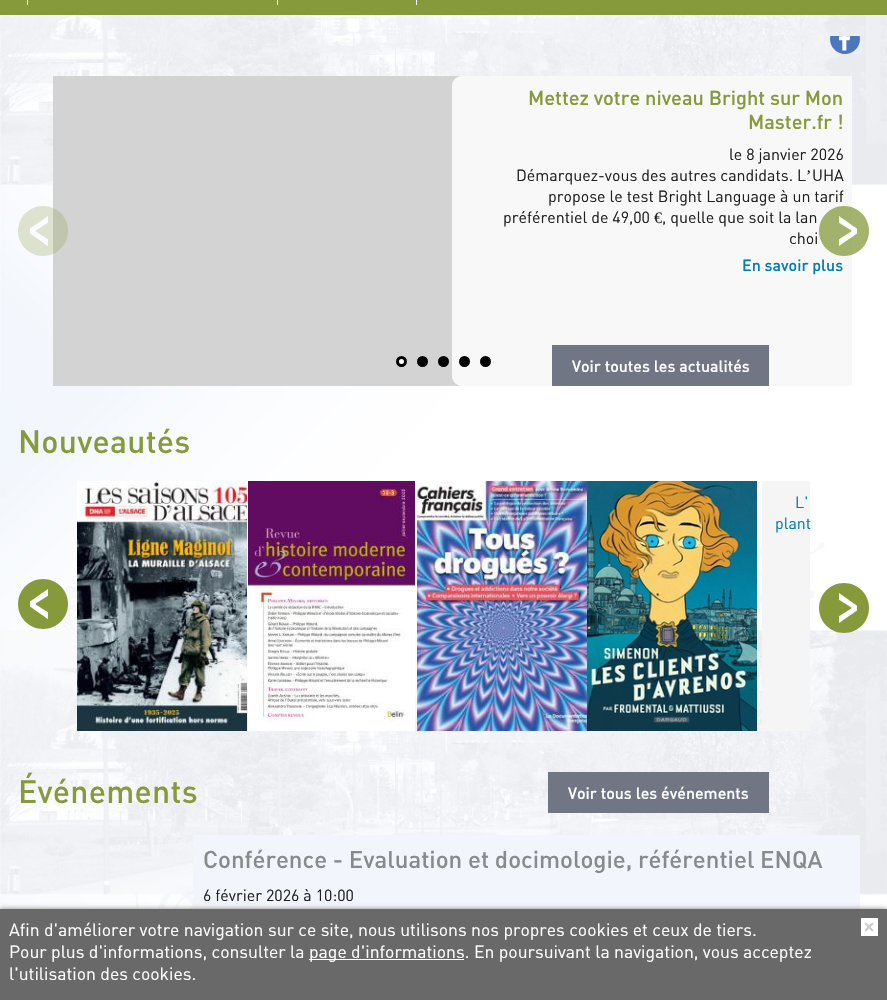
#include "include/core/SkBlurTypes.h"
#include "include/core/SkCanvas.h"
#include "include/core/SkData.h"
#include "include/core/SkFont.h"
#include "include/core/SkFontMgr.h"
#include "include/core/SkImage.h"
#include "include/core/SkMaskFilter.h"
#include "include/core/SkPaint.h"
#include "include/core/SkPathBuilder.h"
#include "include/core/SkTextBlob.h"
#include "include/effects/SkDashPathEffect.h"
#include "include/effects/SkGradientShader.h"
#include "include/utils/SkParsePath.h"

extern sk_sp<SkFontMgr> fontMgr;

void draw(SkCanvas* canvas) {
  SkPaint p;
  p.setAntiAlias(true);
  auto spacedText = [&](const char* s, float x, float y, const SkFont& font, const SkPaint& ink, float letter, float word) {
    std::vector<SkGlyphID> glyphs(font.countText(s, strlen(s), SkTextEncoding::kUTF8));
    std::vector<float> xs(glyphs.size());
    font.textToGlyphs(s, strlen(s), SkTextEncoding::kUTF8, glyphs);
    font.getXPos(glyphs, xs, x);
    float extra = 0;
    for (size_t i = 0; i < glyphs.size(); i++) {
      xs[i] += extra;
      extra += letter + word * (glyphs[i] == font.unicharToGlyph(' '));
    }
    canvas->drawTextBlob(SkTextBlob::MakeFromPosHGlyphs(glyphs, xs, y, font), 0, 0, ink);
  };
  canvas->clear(SK_ColorWHITE);
  canvas->drawImageRect(SkImages::DeferredFromEncodedData(SkData::MakeFromFileName("images/1.png")), SkRect::MakeLTRB(0, 15, 887, 909), SkSamplingOptions());
  p.setColor(SkColorSetRGB(134, 154, 60));
  canvas->drawRect(SkRect::MakeLTRB(0, 0, 887, 15), p);
  p.setColor(SK_ColorWHITE);
  canvas->drawRect(SkRect::MakeLTRB(27, 0, 28, 5), p);
  canvas->drawRect(SkRect::MakeLTRB(277, 0, 278, 5), p);
  canvas->drawRect(SkRect::MakeLTRB(416, 0, 417, 5), p);
  canvas->drawImageRect(SkImages::DeferredFromEncodedData(SkData::MakeFromFileName("images/2.png")), SkRect::MakeLTRB(830, 36, 860, 54), SkSamplingOptions());
  p.setColor(SkColorSetRGB(211, 211, 211));
  canvas->drawRect(SkRect::MakeLTRB(53, 76, 462, 386), p);
  canvas->drawImageRect(SkImages::DeferredFromEncodedData(SkData::MakeFromFileName("images/3.png")), SkRect::MakeLTRB(18, 206, 68, 256), SkSamplingOptions());
  p.setColor(SkColorSetRGB(248, 248, 248));
  canvas->drawPath(SkPathBuilder().moveTo(462, 76).lineTo(852, 76).lineTo(852, 386).lineTo(462, 386).cubicTo(456.5f, 386, 452, 381.5f, 452, 376).lineTo(452, 86).cubicTo(452, 80.5f, 456.5f, 76, 462, 76).close().detach(), p);
  canvas->drawImageRect(SkImages::DeferredFromEncodedData(SkData::MakeFromFileName("images/4.png")), SkRect::MakeLTRB(819, 206, 869, 256), SkSamplingOptions());
  p.setColor(SK_ColorWHITE);
  canvas->drawCircle(401.5f, 361.5f, 4, p);
  p.setStyle(SkPaint::kStroke_Style);
  p.setStrokeWidth(3);
  p.setColor(SK_ColorBLACK);
  canvas->drawCircle(401.5f, 361.5f, 4, p);
  p.setStyle(SkPaint::kFill_Style);
  canvas->drawCircle(422.5f, 361.5f, 4, p);
  p.setStyle(SkPaint::kStroke_Style);
  canvas->drawCircle(422.5f, 361.5f, 4, p);
  p.setStyle(SkPaint::kFill_Style);
  canvas->drawCircle(443.5f, 361.5f, 4, p);
  p.setStyle(SkPaint::kStroke_Style);
  canvas->drawCircle(443.5f, 361.5f, 4, p);
  p.setStyle(SkPaint::kFill_Style);
  canvas->drawCircle(464.5f, 361.5f, 4, p);
  p.setStyle(SkPaint::kStroke_Style);
  canvas->drawCircle(464.5f, 361.5f, 4, p);
  p.setStyle(SkPaint::kFill_Style);
  canvas->drawCircle(485.5f, 361.5f, 4, p);
  p.setStyle(SkPaint::kStroke_Style);
  canvas->drawCircle(485.5f, 361.5f, 4, p);
  p.setStyle(SkPaint::kFill_Style);
  p.setColor(SkColorSetRGB(113, 118, 132));
  canvas->drawRect(SkRect::MakeLTRB(552, 345, 769, 386), p);
  canvas->drawImageRect(SkImages::DeferredFromEncodedData(SkData::MakeFromFileName("images/5.png")), SkRect::MakeLTRB(77, 481, 247, 731), SkSamplingOptions());
  canvas->drawImageRect(SkImages::DeferredFromEncodedData(SkData::MakeFromFileName("images/6.png")), SkRect::MakeLTRB(248, 481, 415, 731), SkSamplingOptions());
  canvas->drawImageRect(SkImages::DeferredFromEncodedData(SkData::MakeFromFileName("images/7.png")), SkRect::MakeLTRB(417, 481, 587, 731), SkSamplingOptions());
  canvas->drawImageRect(SkImages::DeferredFromEncodedData(SkData::MakeFromFileName("images/8.png")), SkRect::MakeLTRB(587, 481, 757, 731), SkSamplingOptions());
  p.setColor(SkColorSetRGB(245, 245, 245));
  canvas->drawRect(SkRect::MakeLTRB(762, 481, 810, 731), p);
  canvas->drawImageRect(SkImages::DeferredFromEncodedData(SkData::MakeFromFileName("images/9.png")), SkRect::MakeLTRB(18, 579, 68, 629), SkSamplingOptions());
  canvas->drawImageRect(SkImages::DeferredFromEncodedData(SkData::MakeFromFileName("images/10.png")), SkRect::MakeLTRB(819, 583, 869, 633), SkSamplingOptions());
  p.setColor(SkColorSetRGB(113, 118, 132));
  canvas->drawRect(SkRect::MakeLTRB(548, 772, 769, 813), p);
  p.setColor(SkColorSetRGB(242, 246, 252));
  canvas->drawRect(SkRect::MakeLTRB(193, 835, 860, 909), p);
  p.setColor(SkColorSetRGB(128, 128, 128));
  p.setMaskFilter(SkMaskFilter::MakeBlur(kNormal_SkBlurStyle, 2.5f));
  canvas->drawRect(SkRect::MakeLTRB(0, 909, 887, 1000), p);
  p.setMaskFilter(nullptr);
  p.setColor(SkColorSetRGB(105, 105, 105));
  canvas->drawRect(SkRect::MakeLTRB(0, 909, 887, 1000), p);
  p.setColor(SK_ColorWHITE);
  canvas->drawRect(SkRect::MakeLTRB(309, 959, 464, 960), p);
  canvas->drawRect(SkRect::MakeLTRB(861, 918, 878, 936), p);
  canvas->drawImageRect(SkImages::DeferredFromEncodedData(SkData::MakeFromFileName("images/11.png")), SkRect::MakeLTRB(864, 922, 874, 932), SkSamplingOptions());
  SkFont font1(fontMgr->matchFamilyStyle("DIN", SkFontStyle(500, SkFontStyle::kNormal_Width, SkFontStyle::kUpright_Slant)), 20);
  font1.setSubpixel(true);
  p.setColor(SkColorSetRGB(134, 154, 60));
  canvas->drawString("Mettez votre niveau Bright sur Mon", 528, 105, font1, p);
  canvas->drawString("Master.fr !", 748, 129, font1, p);
  SkFont font2(fontMgr->matchFamilyStyle("DIN", SkFontStyle::Normal()), 16);
  font2.setSubpixel(true);
  p.setColor(SkColorSetRGB(32, 32, 32));
  canvas->drawString("le 8 janvier 2026", 729, 160, font2, p);
  canvas->drawString("Démarquez-vous des autres candidats. L", 516, 181, font2, p);
  SkFont font3(fontMgr->matchFamilyStyle("Liberation Serif", SkFontStyle::Normal()), 16);
  font3.setSubpixel(true);
  canvas->drawString("’", 806, 181, font3, p);
  canvas->drawString("UHA", 812, 181, font2, p);
  canvas->drawString("propose le test Bright Language à un tarif", 548, 202, font2, p);
  canvas->drawString("préférentiel de 49,00", 503, 223, font2, p);
  canvas->drawString("€", 654, 223, font3, p);
  canvas->drawString(", quelle que soit la lan", 662, 223, font2, p);
  canvas->drawString("choi", 789, 244, font2, p);
  SkFont font4(fontMgr->matchFamilyStyle("DIN", SkFontStyle(500, SkFontStyle::kNormal_Width, SkFontStyle::kUpright_Slant)), 16);
  font4.setSubpixel(true);
  p.setColor(SkColorSetRGB(0, 125, 179));
  canvas->drawString("En savoir plus", 742, 271, font4, p);
  p.setColor(SK_ColorWHITE);
  canvas->drawString("Voir toutes les actualités", 572, 372, font4, p);
  SkFont font5(fontMgr->matchFamilyStyle("DIN", SkFontStyle(500, SkFontStyle::kNormal_Width, SkFontStyle::kUpright_Slant)), 32);
  font5.setSubpixel(true);
  p.setColor(SkColorSetRGB(134, 154, 60));
  spacedText("Nouveautés", 18, 453, font5, p, 0.25f, 0);
  p.setColor(SkColorSetRGB(0, 125, 179));
  canvas->drawString("L'", 795, 508, font2, p);
  canvas->drawString("plant", 775, 529, font2, p);
  p.setColor(SkColorSetRGB(134, 154, 60));
  spacedText("Événements", 18, 803, font5, p, 0.25f, 0);
  p.setColor(SK_ColorWHITE);
  canvas->drawString("Voir tous les événements", 568, 799, font4, p);
  SkFont font6(fontMgr->matchFamilyStyle("DIN", SkFontStyle(500, SkFontStyle::kNormal_Width, SkFontStyle::kUpright_Slant)), 24);
  font6.setSubpixel(true);
  p.setColor(SkColorSetRGB(134, 139, 141));
  canvas->drawString("Conférence - Evaluation et docimologie, référentiel ENQA", 203, 868, font6, p);
  p.setColor(SkColorSetRGB(32, 32, 32));
  canvas->drawString("6 février 2026 à 10:00", 203, 901, font2, p);
  SkFont font7(fontMgr->matchFamilyStyle("DIN", SkFontStyle::Normal()), 17.6f);
  font7.setSubpixel(true);
  p.setColor(SK_ColorWHITE);
  canvas->drawString("Afin d'améliorer votre navigation sur ce site, nous utilisons nos propres cookies et ceux de tiers.", 9, 936, font7, p);
  canvas->drawString("Pour plus d'informations, consulter la", 9, 958, font7, p);
  canvas->drawString("page d'informations. En poursuivant la navigation, vous acceptez", 309, 958, font7, p);
  canvas->drawString("l'utilisation des cookies.", 9, 980, font7, p);
}
